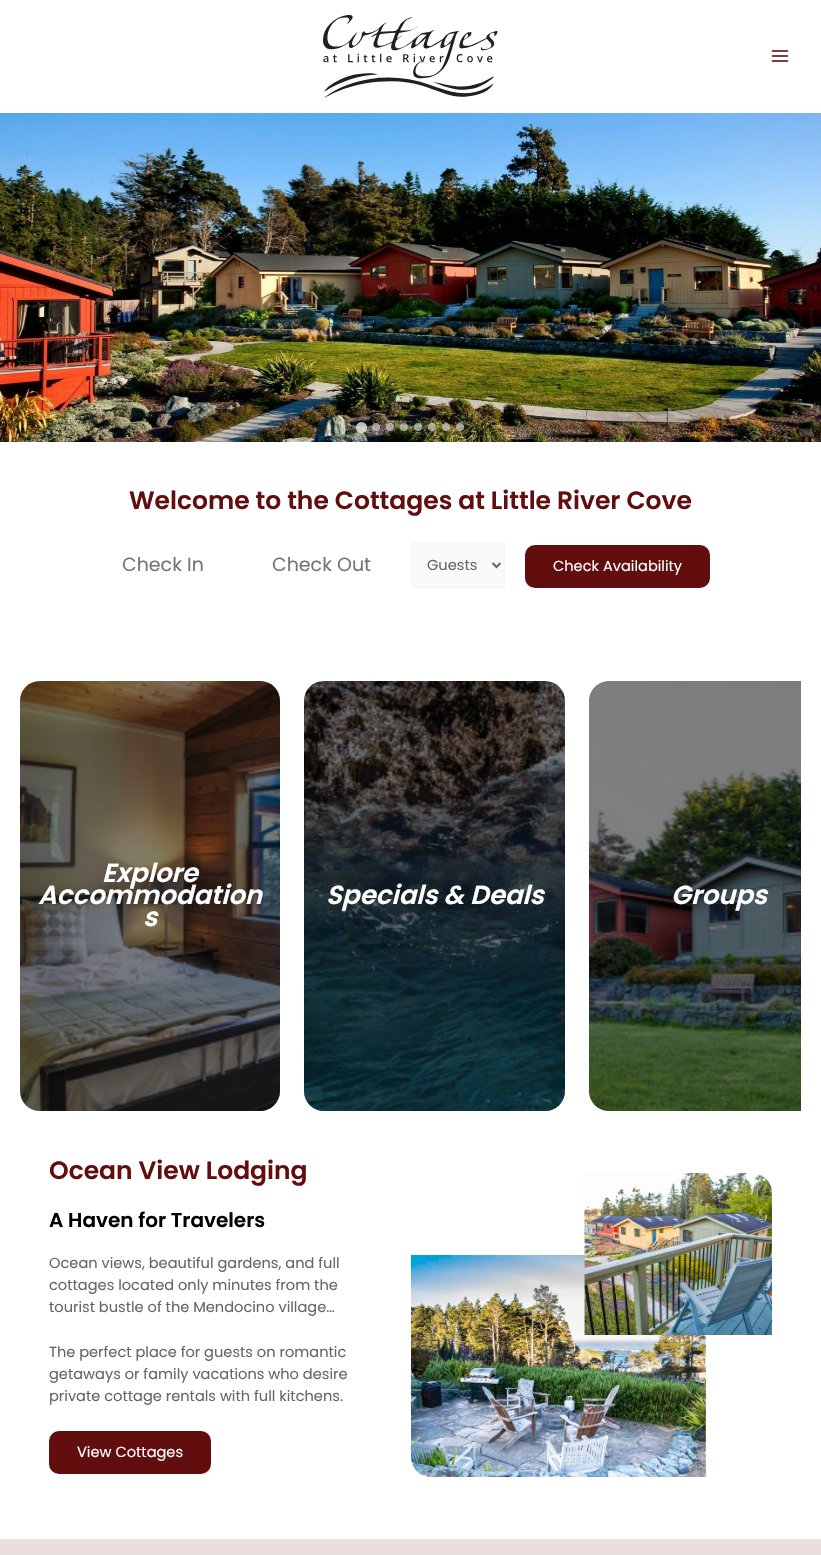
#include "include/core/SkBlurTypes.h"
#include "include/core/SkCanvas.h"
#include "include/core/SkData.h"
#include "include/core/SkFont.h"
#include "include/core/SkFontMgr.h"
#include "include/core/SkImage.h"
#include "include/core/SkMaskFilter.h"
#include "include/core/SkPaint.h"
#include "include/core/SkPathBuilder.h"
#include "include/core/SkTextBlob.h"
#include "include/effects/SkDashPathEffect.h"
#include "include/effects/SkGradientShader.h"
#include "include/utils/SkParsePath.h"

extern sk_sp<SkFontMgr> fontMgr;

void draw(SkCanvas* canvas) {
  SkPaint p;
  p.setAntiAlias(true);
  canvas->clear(SK_ColorWHITE);
  canvas->drawImageRect(SkImages::DeferredFromEncodedData(SkData::MakeFromFileName("images/1.png")), SkRect::MakeLTRB(323, 15, 498, 98), SkSamplingOptions());
  canvas->drawImageRect(SkImages::DeferredFromEncodedData(SkData::MakeFromFileName("images/2.png")), SkRect::MakeLTRB(771, 50, 789, 62), SkSamplingOptions());
  canvas->drawImageRect(SkImages::DeferredFromEncodedData(SkData::MakeFromFileName("images/3.png")), SkRect::MakeLTRB(0, 113, 821, 442), SkSamplingOptions());
  p.setColor(SkColorSetARGB(179, 255, 255, 255));
  canvas->drawCircle(361.5f, 427.5f, 5.5f, p);
  p.setColor(SkColorSetARGB(179, 204, 204, 204));
  canvas->drawCircle(376, 427, 4, p);
  canvas->drawCircle(390, 427, 4, p);
  canvas->drawCircle(404, 427, 4, p);
  canvas->drawCircle(418, 427, 4, p);
  canvas->drawCircle(432, 427, 4, p);
  canvas->drawCircle(446, 427, 4, p);
  canvas->drawCircle(460, 427, 4, p);
  p.setColor(SkColorSetRGB(250, 250, 250));
  canvas->drawRoundRect(SkRect::MakeLTRB(411.5f, 542.5f, 504.5f, 587.5f), 1.5f, 1.5f, p);
  p.setStyle(SkPaint::kStroke_Style);
  p.setStrokeWidth(1);
  p.setColor(SkColorSetRGB(242, 245, 247));
  canvas->drawRoundRect(SkRect::MakeLTRB(411.5f, 542.5f, 504.5f, 587.5f), 1.5f, 1.5f, p);
  p.setStrokeWidth(2);
  p.setColor(SkColorSetRGB(102, 102, 102));
  canvas->drawPath(SkPathBuilder().moveTo(492.5f, 563).lineTo(496.5f, 567).lineTo(500.5f, 563).detach(), p);
  p.setStyle(SkPaint::kFill_Style);
  p.setColor(SkColorSetRGB(99, 14, 14));
  canvas->drawRoundRect(SkRect::MakeLTRB(525, 545, 710, 588), 10, 10, p);
  canvas->drawImageRect(SkImages::DeferredFromEncodedData(SkData::MakeFromFileName("images/4.png")), SkRect::MakeLTRB(20, 681, 280, 1111), SkSamplingOptions());
  p.setColor(SkColorSetARGB(128, 0, 0, 0));
  canvas->drawRoundRect(SkRect::MakeLTRB(20, 681, 280, 1111), 20, 20, p);
  canvas->drawImageRect(SkImages::DeferredFromEncodedData(SkData::MakeFromFileName("images/5.png")), SkRect::MakeLTRB(304, 681, 565, 1111), SkSamplingOptions());
  canvas->drawRoundRect(SkRect::MakeLTRB(304, 681, 565, 1111), 20, 20, p);
  canvas->drawImageRect(SkImages::DeferredFromEncodedData(SkData::MakeFromFileName("images/6.png")), SkRect::MakeLTRB(589, 681, 801, 1111), SkSamplingOptions());
  canvas->drawPath(SkPathBuilder().moveTo(609, 681).lineTo(801, 681).lineTo(801, 1111).lineTo(609, 1111).cubicTo(598, 1111, 589, 1102, 589, 1091).lineTo(589, 701).cubicTo(589, 690, 598, 681, 609, 681).close().detach(), p);
  p.setColor(SkColorSetRGB(99, 14, 14));
  canvas->drawRoundRect(SkRect::MakeLTRB(49, 1431, 211, 1474), 10, 10, p);
  canvas->drawImageRect(SkImages::DeferredFromEncodedData(SkData::MakeFromFileName("images/7.png")), SkRect::MakeLTRB(411, 1173, 772, 1477), SkSamplingOptions());
  p.setColor(SkColorSetRGB(234, 223, 222));
  canvas->drawRect(SkRect::MakeLTRB(0, 1539, 821, 1555), p);
  SkFont font1(fontMgr->matchFamilyStyle("Poppins", SkFontStyle(600, SkFontStyle::kNormal_Width, SkFontStyle::kUpright_Slant)), 25);
  font1.setSubpixel(true);
  p.setColor(SkColorSetRGB(99, 14, 14));
  canvas->drawString("Welcome to the Cottages at Little River Cove", 129, 509, font1, p);
  SkFont font2(fontMgr->matchFamilyStyle("Poppins", SkFontStyle::Normal()), 19);
  font2.setSubpixel(true);
  p.setColor(SkColorSetRGB(117, 117, 117));
  canvas->drawString("Check In", 122, 571, font2, p);
  canvas->drawString("Check Out", 272, 571, font2, p);
  SkFont font3(fontMgr->matchFamilyStyle("Poppins", SkFontStyle::Normal()), 14.6f);
  font3.setSubpixel(true);
  p.setColor(SkColorSetRGB(102, 102, 102));
  canvas->drawString("Guests", 427, 570, font3, p);
  p.setColor(SK_ColorWHITE);
  canvas->drawString("Check Availability", 553, 571, font3, p);
  SkFont font4(fontMgr->matchFamilyStyle("Poppins", SkFontStyle(600, SkFontStyle::kNormal_Width, SkFontStyle::kItalic_Slant)), 26);
  font4.setSubpixel(true);
  canvas->drawString("Explore", 102, 882, font4, p);
  canvas->drawString("Accommodation", 38, 904, font4, p);
  canvas->drawString("s", 143, 926, font4, p);
  canvas->drawString("Specials & Deals", 326, 904, font4, p);
  canvas->drawString("Groups", 671, 904, font4, p);
  p.setColor(SkColorSetRGB(99, 14, 14));
  canvas->drawString("Ocean View Lodging", 49, 1179, font1, p);
  SkFont font5(fontMgr->matchFamilyStyle("Poppins", SkFontStyle(600, SkFontStyle::kNormal_Width, SkFontStyle::kUpright_Slant)), 20);
  font5.setSubpixel(true);
  p.setColor(SK_ColorBLACK);
  canvas->drawString("A Haven for Travelers", 49, 1227, font5, p);
  p.setColor(SkColorSetRGB(102, 102, 102));
  canvas->drawString("Ocean views, beautiful gardens, and full", 49, 1268, font3, p);
  canvas->drawString("cottages located only minutes from the", 49, 1290, font3, p);
  canvas->drawString("tourist bustle of the Mendocino village…", 49, 1312, font3, p);
  canvas->drawString("The perfect place for guests on romantic", 49, 1357, font3, p);
  canvas->drawString("getaways or family vacations who desire", 49, 1379, font3, p);
  canvas->drawString("private cottage rentals with full kitchens.", 49, 1401, font3, p);
  p.setColor(SK_ColorWHITE);
  canvas->drawString("View Cottages", 77, 1457, font3, p);
}
